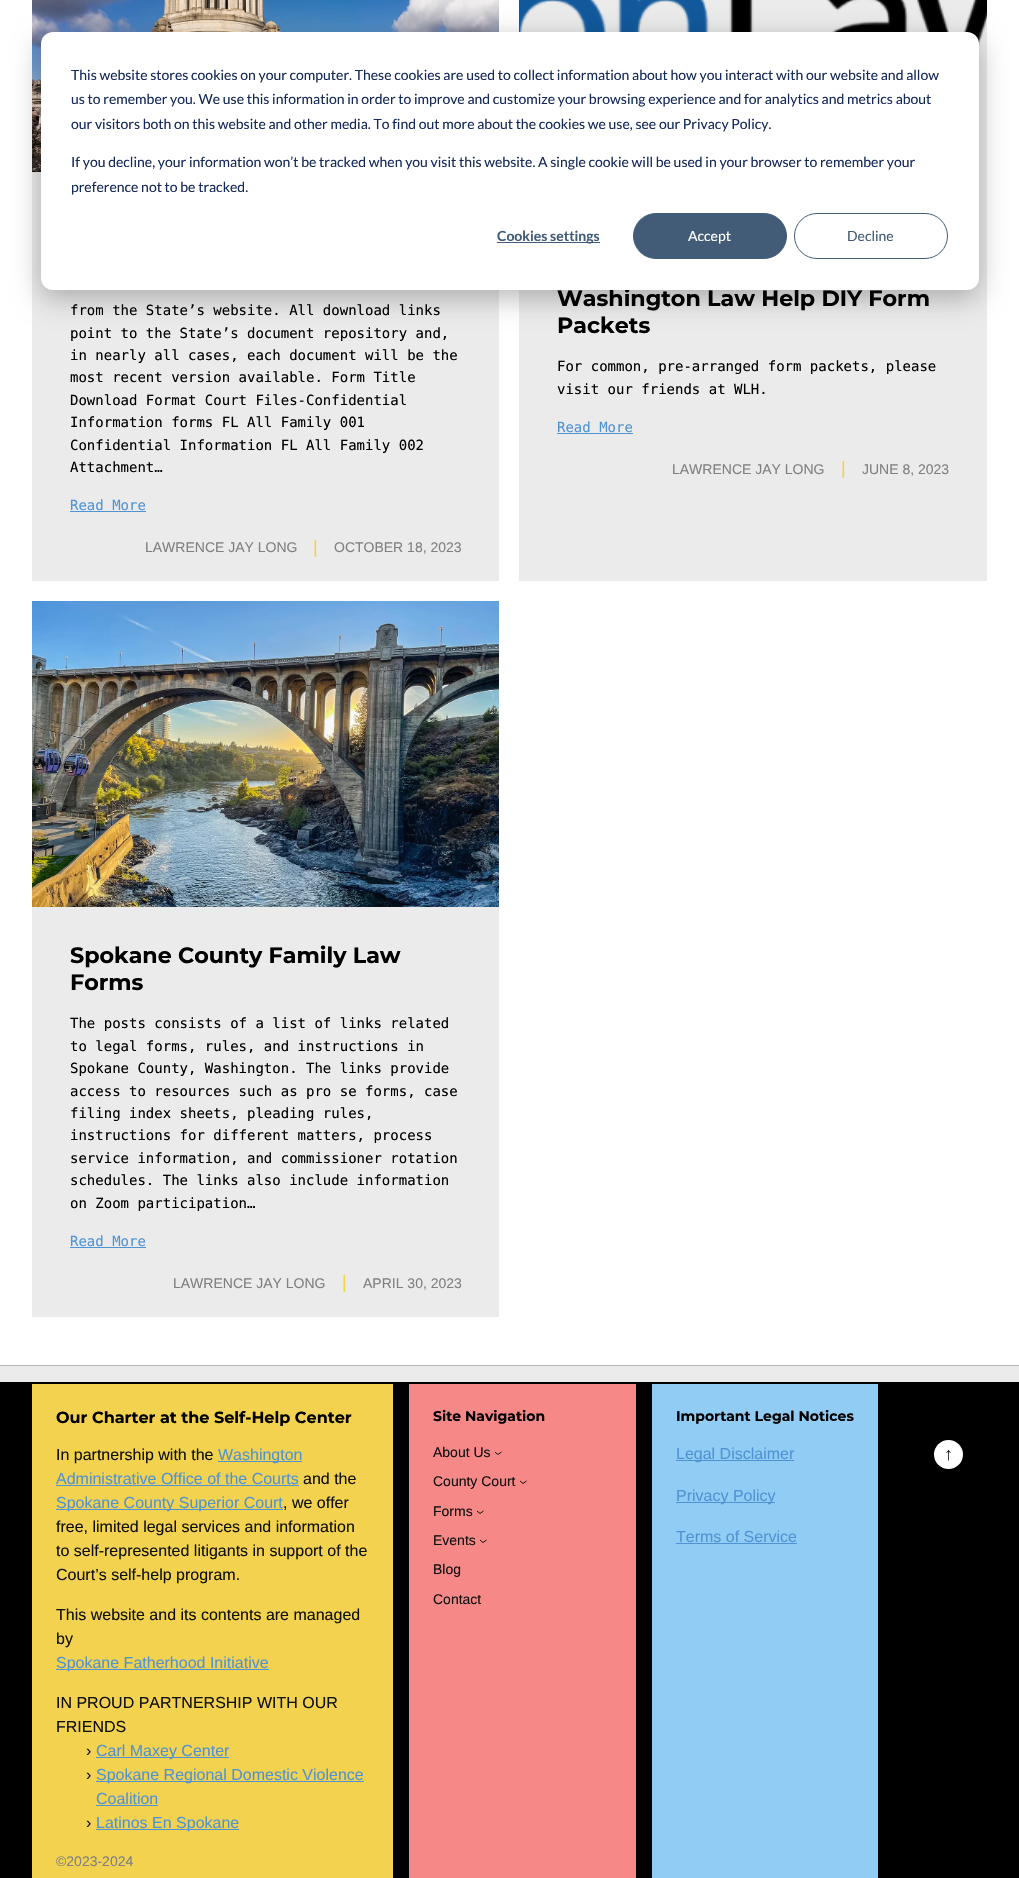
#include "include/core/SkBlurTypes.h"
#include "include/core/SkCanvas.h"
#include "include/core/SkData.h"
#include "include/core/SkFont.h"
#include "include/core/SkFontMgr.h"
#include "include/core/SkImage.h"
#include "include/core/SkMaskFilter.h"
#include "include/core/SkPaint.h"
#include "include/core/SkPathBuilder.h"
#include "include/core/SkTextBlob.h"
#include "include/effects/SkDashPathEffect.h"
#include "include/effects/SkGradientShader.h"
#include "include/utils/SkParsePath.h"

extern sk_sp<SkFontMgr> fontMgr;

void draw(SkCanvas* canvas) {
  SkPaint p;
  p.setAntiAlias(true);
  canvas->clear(SK_ColorWHITE);
  p.setColor(SkColorSetRGB(235, 235, 235));
  canvas->drawRect(SkRect::MakeLTRB(32, 172, 499, 581), p);
  canvas->drawImageRect(SkImages::DeferredFromEncodedData(SkData::MakeFromFileName("images/1.png")), SkRect::MakeLTRB(32, 0, 499, 172), SkSamplingOptions());
  canvas->drawRect(SkRect::MakeLTRB(519, 0, 987, 581), p);
  canvas->drawImageRect(SkImages::DeferredFromEncodedData(SkData::MakeFromFileName("images/2.png")), SkRect::MakeLTRB(519, 0, 987, 46), SkSamplingOptions());
  p.setColor(SkColorSetARGB(71, 0, 0, 0));
  p.setMaskFilter(SkMaskFilter::MakeBlur(kNormal_SkBlurStyle, 14));
  canvas->drawRoundRect(SkRect::MakeLTRB(41, 40, 979, 298), 12, 12, p);
  p.setMaskFilter(nullptr);
  p.setColor(SkColorSetRGB(80, 147, 212));
  canvas->drawRect(SkRect::MakeLTRB(70, 511, 146, 512), p);
  canvas->drawRect(SkRect::MakeLTRB(557, 433, 633, 434), p);
  p.setColor(SkColorSetRGB(235, 235, 235));
  canvas->drawRect(SkRect::MakeLTRB(32, 907, 499, 1317), p);
  canvas->drawImageRect(SkImages::DeferredFromEncodedData(SkData::MakeFromFileName("images/3.png")), SkRect::MakeLTRB(32, 601, 499, 907), SkSamplingOptions());
  p.setColor(SkColorSetRGB(80, 147, 212));
  canvas->drawRect(SkRect::MakeLTRB(70, 1247, 146, 1248), p);
  p.setColor(SkColorSetRGB(235, 235, 235));
  canvas->drawRect(SkRect::MakeLTRB(0, 1366, 1019, 1382), p);
  p.setColor(SkColorSetRGB(184, 184, 184));
  canvas->drawRect(SkRect::MakeLTRB(0, 1365, 1019, 1366), p);
  p.setColor(SK_ColorBLACK);
  canvas->drawRect(SkRect::MakeLTRB(0, 1382, 1019, 1878), p);
  p.setColor(SkColorSetRGB(243, 210, 79));
  canvas->drawRect(SkRect::MakeLTRB(32, 1384, 393, 1878), p);
  p.setColor(SkColorSetRGB(80, 147, 212));
  canvas->drawRect(SkRect::MakeLTRB(218, 1461, 302, 1462), p);
  canvas->drawRect(SkRect::MakeLTRB(56, 1485, 299, 1486), p);
  canvas->drawRect(SkRect::MakeLTRB(56, 1509, 283, 1510), p);
  canvas->drawRect(SkRect::MakeLTRB(56, 1669, 269, 1670), p);
  canvas->drawRect(SkRect::MakeLTRB(96, 1757, 229, 1758), p);
  canvas->drawRect(SkRect::MakeLTRB(96, 1781, 364, 1782), p);
  canvas->drawRect(SkRect::MakeLTRB(96, 1805, 158, 1806), p);
  canvas->drawRect(SkRect::MakeLTRB(96, 1829, 239, 1830), p);
  p.setColor(SkColorSetRGB(246, 136, 135));
  canvas->drawRect(SkRect::MakeLTRB(409, 1384, 636, 1878), p);
  p.setStyle(SkPaint::kStroke_Style);
  p.setStrokeWidth(1);
  p.setColor(SkColorSetRGB(16, 16, 16));
  canvas->drawPath(SkPathBuilder().moveTo(495, 1452).lineTo(498, 1454.5f).lineTo(501.5f, 1452).detach(), p);
  canvas->drawPath(SkPathBuilder().moveTo(520, 1481).lineTo(523, 1483.5f).lineTo(526.5f, 1481).detach(), p);
  canvas->drawPath(SkPathBuilder().moveTo(477, 1511).lineTo(480, 1513.5f).lineTo(483.5f, 1511).detach(), p);
  canvas->drawPath(SkPathBuilder().moveTo(480, 1540).lineTo(483, 1542.5f).lineTo(486.5f, 1540).detach(), p);
  p.setStyle(SkPaint::kFill_Style);
  p.setColor(SkColorSetRGB(145, 204, 244));
  canvas->drawRect(SkRect::MakeLTRB(652, 1384, 878, 1878), p);
  p.setColor(SkColorSetRGB(80, 147, 212));
  canvas->drawRect(SkRect::MakeLTRB(676, 1460, 794, 1461), p);
  canvas->drawRect(SkRect::MakeLTRB(676, 1502, 775, 1503), p);
  canvas->drawRect(SkRect::MakeLTRB(676, 1543, 797, 1544), p);
  p.setColor(SK_ColorWHITE);
  canvas->drawCircle(948.5f, 1454.5f, 14.5f, p);
  SkFont font1(fontMgr->matchFamilyStyle("DejaVu Sans Mono", SkFontStyle::Normal()), 14);
  font1.setSubpixel(true);
  p.setColor(SK_ColorBLACK);
  canvas->drawString("from the State’s website. All download links", 70, 315, font1, p);
  canvas->drawString("point to the State’s document repository and,", 70, 338, font1, p);
  canvas->drawString("in nearly all cases, each document will be the", 70, 360, font1, p);
  canvas->drawString("most recent version available. Form Title", 70, 382, font1, p);
  canvas->drawString("Download Format Court Files-Confidential", 70, 405, font1, p);
  canvas->drawString("Information forms FL All Family 001", 70, 427, font1, p);
  canvas->drawString("Confidential Information FL All Family 002", 70, 450, font1, p);
  canvas->drawString("Attachment…", 70, 472, font1, p);
  p.setColor(SkColorSetRGB(80, 147, 212));
  canvas->drawString("Read More", 70, 510, font1, p);
  SkFont font2(fontMgr->matchFamilyStyle("Liberation Sans", SkFontStyle::Normal()), 14);
  font2.setSubpixel(true);
  p.setColor(SkColorSetRGB(128, 128, 128));
  canvas->drawString("LAWRENCE JAY LONG", 145, 552, font2, p);
  SkFont font3(fontMgr->matchFamilyStyle("Liberation Sans", SkFontStyle::Normal()), 18);
  font3.setSubpixel(true);
  p.setColor(SkColorSetRGB(243, 210, 79));
  canvas->drawString("|", 313, 553, font3, p);
  p.setColor(SkColorSetRGB(128, 128, 128));
  canvas->drawString("OCTOBER 18, 2023", 334, 552, font2, p);
  SkFont font4(fontMgr->matchFamilyStyle("Montserrat", SkFontStyle::Bold()), 22.2f);
  font4.setSubpixel(true);
  p.setColor(SK_ColorBLACK);
  canvas->drawString("Washington Law Help DIY Form", 557, 306, font4, p);
  p.setColor(SK_ColorWHITE);
  canvas->drawRoundRect(SkRect::MakeLTRB(41, 32, 979, 290), 12, 12, p);
  p.setStyle(SkPaint::kStroke_Style);
  p.setColor(SkColorSetRGB(66, 91, 118));
  canvas->drawRoundRect(SkRect::MakeLTRB(794.5f, 213.5f, 947.5f, 258.5f), 22.5f, 22.5f, p);
  SkFont font5(fontMgr->matchFamilyStyle("Lato", SkFontStyle::Normal()), 14);
  font5.setSubpixel(true);
  p.setStyle(SkPaint::kFill_Style);
  canvas->drawString("Decline", 847, 241, font5, p);
  canvas->drawRoundRect(SkRect::MakeLTRB(633.5f, 213.5f, 786.5f, 258.5f), 22.5f, 22.5f, p);
  p.setStyle(SkPaint::kStroke_Style);
  canvas->drawRoundRect(SkRect::MakeLTRB(633.5f, 213.5f, 786.5f, 258.5f), 22.5f, 22.5f, p);
  p.setStyle(SkPaint::kFill_Style);
  p.setColor(SK_ColorWHITE);
  canvas->drawString("Accept", 688, 241, font5, p);
  p.setColor(SkColorSetRGB(66, 91, 118));
  canvas->drawRect(SkRect::MakeLTRB(497, 242, 600, 243), p);
  SkFont font6(fontMgr->matchFamilyStyle("Lato", SkFontStyle::Bold()), 14);
  font6.setSubpixel(true);
  canvas->drawString("Cookies settings", 497, 241, font6, p);
  p.setColor(SkColorSetRGB(21, 41, 90));
  canvas->drawString("preference not to be tracked.", 71, 192, font5, p);
  canvas->drawString("If you decline, your information won’t be tracked when you visit this website. A single cookie will be used in your browser to remember your", 71, 167, font5, p);
  canvas->drawString("our visitors both on this website and other media. To find out more about the cookies we use, see our Privacy Policy.", 71, 129, font5, p);
  canvas->drawString("us to remember you. We use this information in order to improve and customize your browsing experience and for analytics and metrics about", 71, 104, font5, p);
  canvas->drawString("This website stores cookies on your computer. These cookies are used to collect information about how you interact with our website and allow", 71, 80, font5, p);
  p.setColor(SK_ColorBLACK);
  canvas->drawString("Packets", 557, 333, font4, p);
  canvas->drawString("For common, pre-arranged form packets, please", 557, 371, font1, p);
  canvas->drawString("visit our friends at WLH.", 557, 394, font1, p);
  p.setColor(SkColorSetRGB(80, 147, 212));
  canvas->drawString("Read More", 557, 432, font1, p);
  p.setColor(SkColorSetRGB(128, 128, 128));
  canvas->drawString("LAWRENCE JAY LONG", 672, 474, font2, p);
  p.setColor(SkColorSetRGB(243, 210, 79));
  canvas->drawString("|", 841, 474, font3, p);
  p.setColor(SkColorSetRGB(128, 128, 128));
  canvas->drawString("JUNE 8, 2023", 862, 474, font2, p);
  p.setColor(SK_ColorBLACK);
  canvas->drawString("Spokane County Family Law", 70, 963, font4, p);
  canvas->drawString("Forms", 70, 990, font4, p);
  canvas->drawString("The posts consists of a list of links related", 70, 1028, font1, p);
  canvas->drawString("to legal forms, rules, and instructions in", 70, 1051, font1, p);
  canvas->drawString("Spokane County, Washington. The links provide", 70, 1073, font1, p);
  canvas->drawString("access to resources such as pro se forms, case", 70, 1096, font1, p);
  canvas->drawString("filing index sheets, pleading rules,", 70, 1118, font1, p);
  canvas->drawString("instructions for different matters, process", 70, 1140, font1, p);
  canvas->drawString("service information, and commissioner rotation", 70, 1163, font1, p);
  canvas->drawString("schedules. The links also include information", 70, 1185, font1, p);
  canvas->drawString("on Zoom participation…", 70, 1208, font1, p);
  p.setColor(SkColorSetRGB(80, 147, 212));
  canvas->drawString("Read More", 70, 1246, font1, p);
  p.setColor(SkColorSetRGB(128, 128, 128));
  canvas->drawString("LAWRENCE JAY LONG", 173, 1288, font2, p);
  p.setColor(SkColorSetRGB(243, 210, 79));
  canvas->drawString("|", 342, 1288, font3, p);
  p.setColor(SkColorSetRGB(128, 128, 128));
  canvas->drawString("APRIL 30, 2023", 363, 1288, font2, p);
  SkFont font7(fontMgr->matchFamilyStyle("Montserrat", SkFontStyle::Bold()), 16);
  font7.setSubpixel(true);
  p.setColor(SK_ColorBLACK);
  canvas->drawString("Our Charter at the Self-Help Center", 56, 1423, font7, p);
  SkFont font8(fontMgr->matchFamilyStyle("Liberation Sans", SkFontStyle::Normal()), 16);
  font8.setSubpixel(true);
  p.setColor(SkColorSetRGB(16, 16, 16));
  canvas->drawString("In partnership with the", 56, 1460, font8, p);
  p.setColor(SkColorSetRGB(80, 147, 212));
  canvas->drawString("Washington", 218, 1460, font8, p);
  canvas->drawString("Administrative Office of the Courts", 56, 1484, font8, p);
  p.setColor(SkColorSetRGB(16, 16, 16));
  canvas->drawString("and the", 303, 1484, font8, p);
  p.setColor(SkColorSetRGB(80, 147, 212));
  canvas->drawString("Spokane County Superior Court", 56, 1508, font8, p);
  p.setColor(SkColorSetRGB(16, 16, 16));
  canvas->drawString(", we offer", 283, 1508, font8, p);
  canvas->drawString("free, limited legal services and information", 56, 1532, font8, p);
  canvas->drawString("to self-represented litigants in support of the", 56, 1556, font8, p);
  canvas->drawString("Court’s self-help program.", 56, 1580, font8, p);
  canvas->drawString("This website and its contents are managed", 56, 1620, font8, p);
  canvas->drawString("by", 56, 1644, font8, p);
  p.setColor(SkColorSetRGB(80, 147, 212));
  canvas->drawString("Spokane Fatherhood Initiative", 56, 1668, font8, p);
  p.setColor(SkColorSetRGB(16, 16, 16));
  canvas->drawString("IN PROUD PARTNERSHIP WITH OUR", 56, 1708, font8, p);
  canvas->drawString("FRIENDS", 56, 1732, font8, p);
  canvas->drawString("›", 86, 1756, font8, p);
  p.setColor(SkColorSetRGB(80, 147, 212));
  canvas->drawString("Carl Maxey Center", 96, 1756, font8, p);
  p.setColor(SkColorSetRGB(16, 16, 16));
  canvas->drawString("›", 86, 1780, font8, p);
  p.setColor(SkColorSetRGB(80, 147, 212));
  canvas->drawString("Spokane Regional Domestic Violence", 96, 1780, font8, p);
  canvas->drawString("Coalition", 96, 1804, font8, p);
  p.setColor(SkColorSetRGB(16, 16, 16));
  canvas->drawString("›", 86, 1828, font8, p);
  p.setColor(SkColorSetRGB(80, 147, 212));
  canvas->drawString("Latinos En Spokane", 96, 1828, font8, p);
  p.setColor(SkColorSetRGB(128, 128, 128));
  canvas->drawString("©2023-2024", 56, 1866, font2, p);
  SkFont font9(fontMgr->matchFamilyStyle("Montserrat", SkFontStyle::Bold()), 14);
  font9.setSubpixel(true);
  p.setColor(SK_ColorBLACK);
  canvas->drawString("Site Navigation", 433, 1421, font9, p);
  p.setColor(SkColorSetRGB(16, 16, 16));
  canvas->drawString("About Us", 433, 1457, font2, p);
  canvas->drawString("County Court", 433, 1486, font2, p);
  canvas->drawString("Forms", 433, 1516, font2, p);
  canvas->drawString("Events", 433, 1545, font2, p);
  canvas->drawString("Blog", 433, 1574, font2, p);
  canvas->drawString("Contact", 433, 1604, font2, p);
  p.setColor(SK_ColorBLACK);
  canvas->drawString("Important Legal Notices", 676, 1421, font9, p);
  p.setColor(SkColorSetRGB(80, 147, 212));
  canvas->drawString("Legal Disclaimer", 676, 1459, font8, p);
  canvas->drawString("Privacy Policy", 676, 1501, font8, p);
  canvas->drawString("Terms of Service", 676, 1542, font8, p);
  p.setColor(SkColorSetRGB(16, 16, 16));
  canvas->drawString("↑", 944, 1460, font3, p);
}
